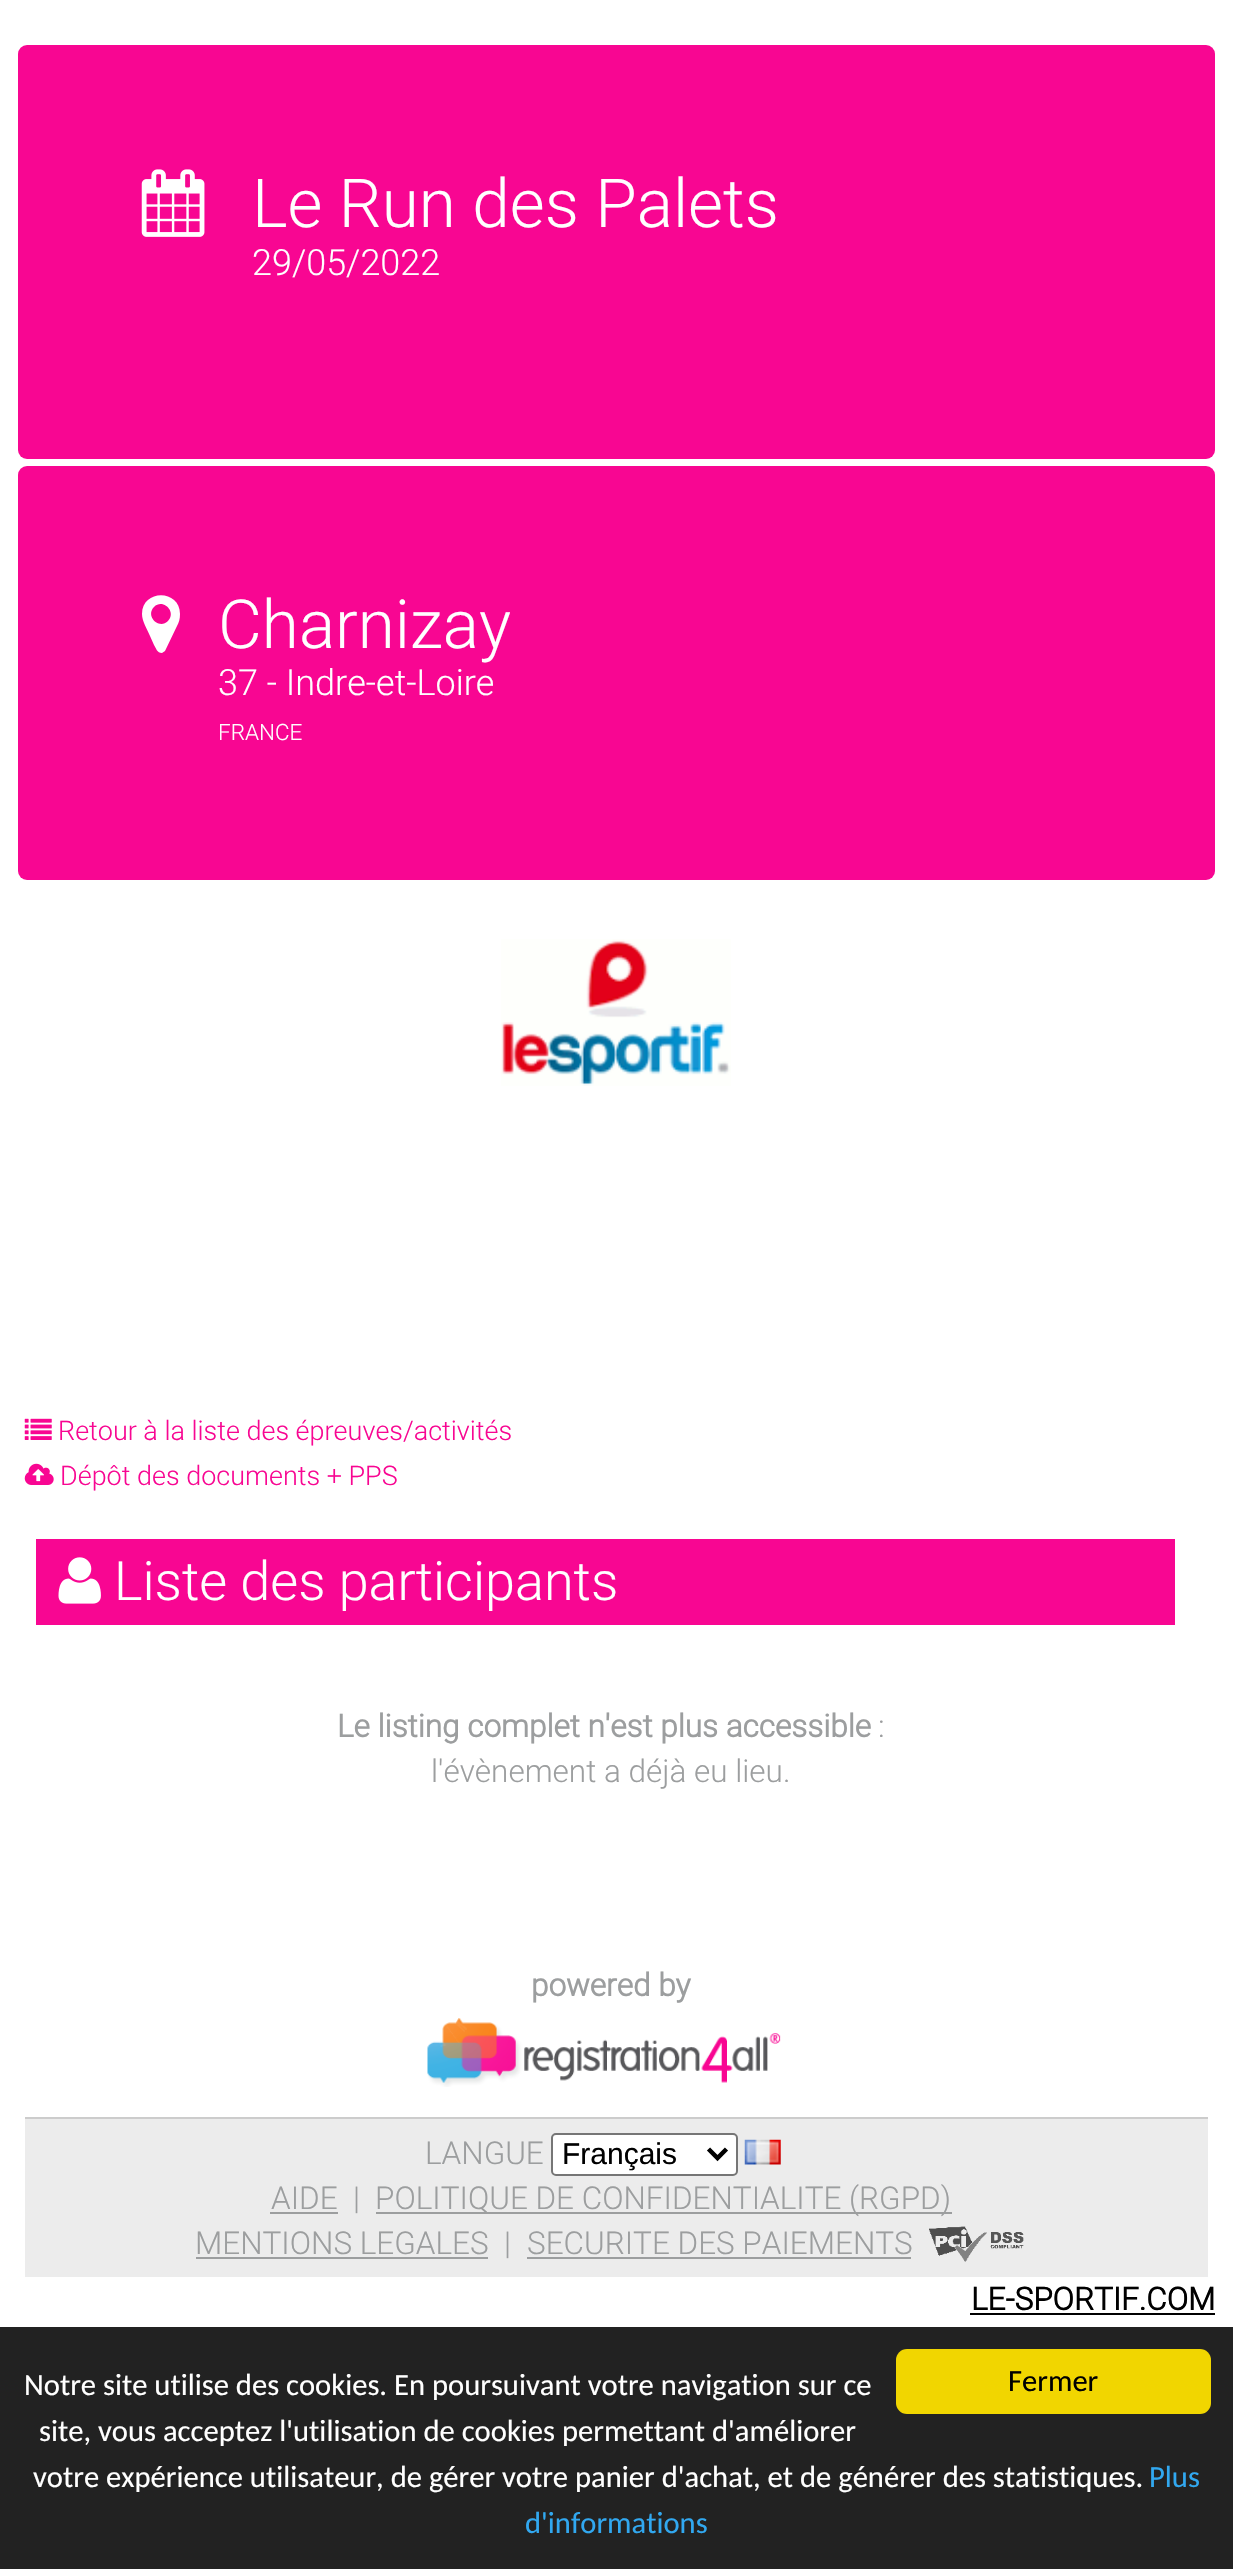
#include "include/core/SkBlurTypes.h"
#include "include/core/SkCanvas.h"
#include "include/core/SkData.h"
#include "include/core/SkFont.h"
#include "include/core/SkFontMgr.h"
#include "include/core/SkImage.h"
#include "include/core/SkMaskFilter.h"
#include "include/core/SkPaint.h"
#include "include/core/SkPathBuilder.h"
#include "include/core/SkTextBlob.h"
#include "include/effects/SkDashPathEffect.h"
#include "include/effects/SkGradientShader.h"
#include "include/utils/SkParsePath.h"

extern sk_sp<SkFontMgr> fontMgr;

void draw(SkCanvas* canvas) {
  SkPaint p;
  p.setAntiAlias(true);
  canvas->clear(SK_ColorWHITE);
  p.setColor(SkColorSetRGB(248, 6, 146));
  canvas->drawRoundRect(SkRect::MakeLTRB(18, 45, 1215, 459), 9, 9, p);
  canvas->drawImageRect(SkImages::DeferredFromEncodedData(SkData::MakeFromFileName("images/1.png")), SkRect::MakeLTRB(141, 169, 205, 237), SkSamplingOptions());
  canvas->drawRoundRect(SkRect::MakeLTRB(18, 466, 1215, 880), 9, 9, p);
  p.setColor(SK_ColorWHITE);
  canvas->drawPath(SkPathBuilder().moveTo(168, 621).cubicTo(177, 612, 163, 598, 154, 607).cubicTo(145, 616, 159, 630, 168, 621).close().moveTo(180, 614).cubicTo(180, 619, 179, 622, 177, 626).lineTo(165, 651).lineTo(162, 653).cubicTo(157, 653, 156, 648, 154, 645).lineTo(150, 636).cubicTo(147, 629, 142, 621, 142, 614).cubicTo(142, 589, 180, 589, 180, 614).close().detach(), p);
  canvas->drawImageRect(SkImages::DeferredFromEncodedData(SkData::MakeFromFileName("images/2.png")), SkRect::MakeLTRB(501, 939, 731, 1086), SkSamplingOptions());
  canvas->drawImageRect(SkImages::DeferredFromEncodedData(SkData::MakeFromFileName("images/3.png")), SkRect::MakeLTRB(24, 1418, 52, 1440), SkSamplingOptions());
  canvas->drawImageRect(SkImages::DeferredFromEncodedData(SkData::MakeFromFileName("images/4.png")), SkRect::MakeLTRB(24, 1463, 54, 1485), SkSamplingOptions());
  p.setColor(SkColorSetRGB(248, 6, 146));
  canvas->drawRect(SkRect::MakeLTRB(36, 1539, 1175, 1625), p);
  canvas->drawImageRect(SkImages::DeferredFromEncodedData(SkData::MakeFromFileName("images/5.png")), SkRect::MakeLTRB(58, 1557, 101, 1604), SkSamplingOptions());
  canvas->drawImageRect(SkImages::DeferredFromEncodedData(SkData::MakeFromFileName("images/6.png")), SkRect::MakeLTRB(427, 2018, 781, 2087), SkSamplingOptions());
  p.setColor(SkColorSetRGB(236, 236, 236));
  canvas->drawRect(SkRect::MakeLTRB(25, 2119, 1208, 2277), p);
  p.setColor(SkColorSetRGB(204, 204, 204));
  canvas->drawRect(SkRect::MakeLTRB(25, 2117, 1208, 2119), p);
  p.setColor(SK_ColorWHITE);
  canvas->drawRoundRect(SkRect::MakeLTRB(552, 2134, 737, 2175), 4, 4, p);
  p.setStyle(SkPaint::kStroke_Style);
  p.setStrokeWidth(2);
  p.setColor(SkColorSetRGB(118, 118, 118));
  canvas->drawRoundRect(SkRect::MakeLTRB(552, 2134, 737, 2175), 4, 4, p);
  p.setStrokeWidth(4.5f);
  p.setColor(SK_ColorBLACK);
  canvas->drawPath(SkPathBuilder().moveTo(708.5f, 2149).lineTo(717.5f, 2158).lineTo(726.5f, 2149).detach(), p);
  canvas->drawImageRect(SkImages::DeferredFromEncodedData(SkData::MakeFromFileName("images/7.png")), SkRect::MakeLTRB(744, 2139, 781, 2165), SkSamplingOptions());
  p.setStyle(SkPaint::kFill_Style);
  p.setColor(SkColorSetRGB(156, 158, 159));
  canvas->drawRect(SkRect::MakeLTRB(270, 2212, 338, 2214), p);
  canvas->drawRect(SkRect::MakeLTRB(376, 2212, 952, 2214), p);
  canvas->drawRect(SkRect::MakeLTRB(196, 2257, 488, 2259), p);
  canvas->drawRect(SkRect::MakeLTRB(527, 2257, 911, 2259), p);
  canvas->drawImageRect(SkImages::DeferredFromEncodedData(SkData::MakeFromFileName("images/8.png")), SkRect::MakeLTRB(929, 2226, 1024, 2262), SkSamplingOptions());
  p.setColor(SK_ColorBLACK);
  canvas->drawRect(SkRect::MakeLTRB(970, 2313, 1215, 2315), p);
  p.setColor(SkColorSetRGB(34, 34, 34));
  canvas->drawRect(SkRect::MakeLTRB(0, 2327, 1233, 2569), p);
  p.setColor(SkColorSetRGB(241, 214, 0));
  canvas->drawRoundRect(SkRect::MakeLTRB(896, 2349, 1211, 2414), 11, 11, p);
  SkFont font1(fontMgr->matchFamilyStyle("Roboto", SkFontStyle(300, SkFontStyle::kNormal_Width, SkFontStyle::kUpright_Slant)), 67.5f);
  font1.setSubpixel(true);
  p.setColor(SK_ColorWHITE);
  canvas->drawString("Le Run des Palets", 252, 227, font1, p);
  SkFont font2(fontMgr->matchFamilyStyle("Roboto", SkFontStyle(300, SkFontStyle::kNormal_Width, SkFontStyle::kUpright_Slant)), 36);
  font2.setSubpixel(true);
  canvas->drawString("29/05/2022", 252, 275, font2, p);
  canvas->drawString("Charnizay", 218, 648, font1, p);
  canvas->drawString("37 - Indre-et-Loire", 218, 695, font2, p);
  SkFont font3(fontMgr->matchFamilyStyle("Roboto", SkFontStyle(300, SkFontStyle::kNormal_Width, SkFontStyle::kUpright_Slant)), 22.5f);
  font3.setSubpixel(true);
  canvas->drawString("FRANCE", 218, 740, font3, p);
  SkFont font4(fontMgr->matchFamilyStyle("Roboto", SkFontStyle(300, SkFontStyle::kNormal_Width, SkFontStyle::kUpright_Slant)), 27);
  font4.setSubpixel(true);
  p.setColor(SkColorSetRGB(248, 6, 146));
  canvas->drawString("Retour à la liste des épreuves/activités", 58, 1440, font4, p);
  canvas->drawString("Dépôt des documents + PPS", 60, 1485, font4, p);
  SkFont font5(fontMgr->matchFamilyStyle("Roboto", SkFontStyle(300, SkFontStyle::kNormal_Width, SkFontStyle::kUpright_Slant)), 54);
  font5.setSubpixel(true);
  p.setColor(SK_ColorWHITE);
  canvas->drawString("Liste des participants", 114, 1600, font5, p);
  SkFont font6(fontMgr->matchFamilyStyle("Roboto", SkFontStyle::Bold()), 31.5f);
  font6.setSubpixel(true);
  p.setColor(SkColorSetRGB(156, 158, 159));
  canvas->drawString("Le listing complet n'est plus accessible", 337, 1737, font6, p);
  SkFont font7(fontMgr->matchFamilyStyle("Roboto", SkFontStyle(300, SkFontStyle::kNormal_Width, SkFontStyle::kUpright_Slant)), 31.5f);
  font7.setSubpixel(true);
  canvas->drawString(":", 878, 1737, font7, p);
  canvas->drawString("l'évènement a déjà eu lieu.", 431, 1782, font7, p);
  canvas->drawString("powered by", 531, 1996, font6, p);
  canvas->drawString("LANGUE", 425, 2164, font7, p);
  SkFont font8(fontMgr->matchFamilyStyle("Liberation Sans", SkFontStyle::Normal()), 30);
  font8.setSubpixel(true);
  p.setColor(SK_ColorBLACK);
  canvas->drawString("Français", 562, 2164, font8, p);
  p.setColor(SkColorSetRGB(156, 158, 159));
  canvas->drawString("AIDE", 271, 2209, font7, p);
  canvas->drawString("|", 353, 2209, font7, p);
  canvas->drawString("POLITIQUE DE CONFIDENTIALITE (RGPD)", 375, 2209, font7, p);
  canvas->drawString("MENTIONS LEGALES", 195, 2254, font7, p);
  canvas->drawString("|", 504, 2254, font7, p);
  canvas->drawString("SECURITE DES PAIEMENTS", 527, 2254, font7, p);
  p.setColor(SK_ColorBLACK);
  canvas->drawString("LE-SPORTIF.COM", 971, 2310, font6, p);
  SkFont font9(fontMgr->matchFamilyStyle("Carlito", SkFontStyle::Normal()), 30.6f);
  font9.setSubpixel(true);
  canvas->drawString("Fermer", 1008, 2391, font9, p);
  p.setColor(SK_ColorWHITE);
  canvas->drawString("Notre site utilise des cookies. En poursuivant votre navigation sur ce", 24, 2395, font9, p);
  canvas->drawString("site, vous acceptez l'utilisation de cookies permettant d'améliorer", 39, 2441, font9, p);
  canvas->drawString("votre expérience utilisateur, de gérer votre panier d'achat, et de générer des statistiques.", 33, 2487, font9, p);
  p.setColor(SkColorSetRGB(49, 168, 240));
  canvas->drawString("Plus", 1149, 2487, font9, p);
  canvas->drawString("d'informations", 525, 2533, font9, p);
}
